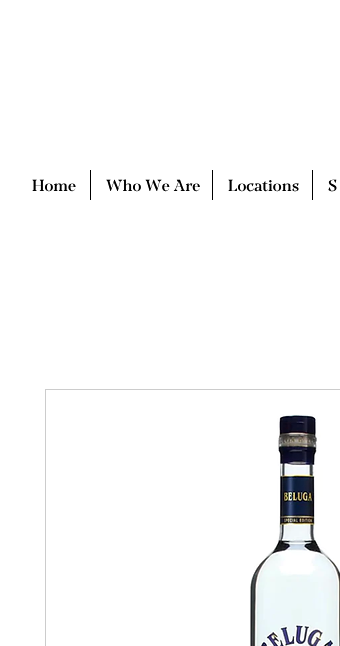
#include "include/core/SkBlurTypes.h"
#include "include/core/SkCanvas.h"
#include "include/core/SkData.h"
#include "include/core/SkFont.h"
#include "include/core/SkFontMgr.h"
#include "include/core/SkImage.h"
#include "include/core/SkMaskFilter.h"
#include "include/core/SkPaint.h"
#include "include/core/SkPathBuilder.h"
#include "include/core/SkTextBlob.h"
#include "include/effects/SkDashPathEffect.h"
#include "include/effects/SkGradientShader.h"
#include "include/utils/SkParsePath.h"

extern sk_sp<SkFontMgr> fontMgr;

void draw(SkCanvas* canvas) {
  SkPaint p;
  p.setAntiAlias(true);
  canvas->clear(SK_ColorWHITE);
  p.setColor(SK_ColorBLACK);
  canvas->drawRect(SkRect::MakeLTRB(90, 170, 91, 200), p);
  canvas->drawRect(SkRect::MakeLTRB(212, 170, 213, 200), p);
  canvas->drawRect(SkRect::MakeLTRB(312, 170, 313, 200), p);
  p.setStyle(SkPaint::kStroke_Style);
  p.setStrokeWidth(1);
  p.setColor(SkColorSetRGB(204, 204, 204));
  canvas->drawRect(SkRect::MakeLTRB(45.5f, 389.5f, 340.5f, 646.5f), p);
  canvas->drawImageRect(SkImages::DeferredFromEncodedData(SkData::MakeFromFileName("images/1.png")), SkRect::MakeLTRB(250, 414, 340, 646), SkSamplingOptions());
  SkFont font1(fontMgr->matchFamilyStyle("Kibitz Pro", SkFontStyle::Normal()), 16);
  font1.setSubpixel(true);
  p.setStyle(SkPaint::kFill_Style);
  p.setColor(SK_ColorBLACK);
  canvas->drawString("Home", 32, 191, font1, p);
  canvas->drawString("Who We Are", 106, 191, font1, p);
  canvas->drawString("Locations", 228, 191, font1, p);
  canvas->drawString("S", 328, 191, font1, p);
}
